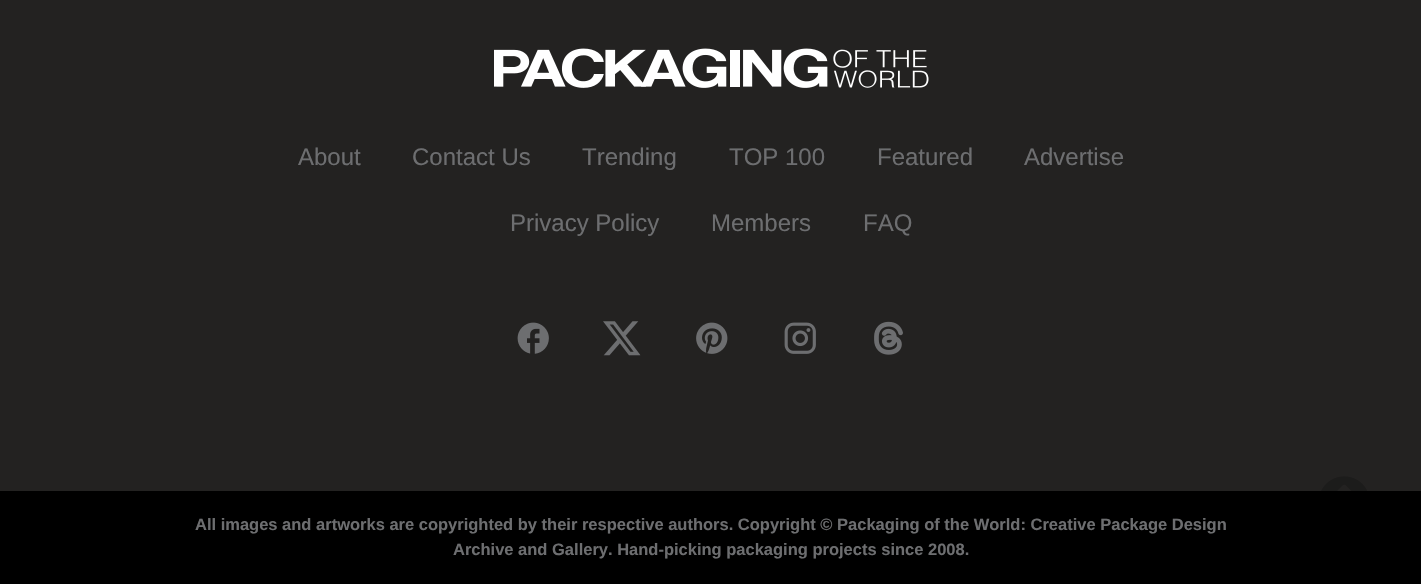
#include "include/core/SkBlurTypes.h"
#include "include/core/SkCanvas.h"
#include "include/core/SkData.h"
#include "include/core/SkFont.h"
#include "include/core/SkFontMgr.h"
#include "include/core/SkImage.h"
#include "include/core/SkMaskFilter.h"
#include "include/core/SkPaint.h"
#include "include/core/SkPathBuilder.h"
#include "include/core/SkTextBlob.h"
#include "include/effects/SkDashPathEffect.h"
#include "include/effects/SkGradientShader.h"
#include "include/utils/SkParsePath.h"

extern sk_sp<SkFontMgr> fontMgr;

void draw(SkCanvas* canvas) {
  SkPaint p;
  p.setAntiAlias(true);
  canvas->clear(SkColorSetRGB(35, 34, 33));
  canvas->drawImageRect(SkImages::DeferredFromEncodedData(SkData::MakeFromFileName("images/1.png")), SkRect::MakeLTRB(494, 48, 929, 88), SkSamplingOptions());
  canvas->drawImageRect(SkImages::DeferredFromEncodedData(SkData::MakeFromFileName("images/2.png")), SkRect::MakeLTRB(517, 322, 549, 354), SkSamplingOptions());
  canvas->drawImageRect(SkImages::DeferredFromEncodedData(SkData::MakeFromFileName("images/3.png")), SkRect::MakeLTRB(603, 321, 641, 356), SkSamplingOptions());
  canvas->drawImageRect(SkImages::DeferredFromEncodedData(SkData::MakeFromFileName("images/4.png")), SkRect::MakeLTRB(696, 322, 728, 354), SkSamplingOptions());
  canvas->drawImageRect(SkImages::DeferredFromEncodedData(SkData::MakeFromFileName("images/5.png")), SkRect::MakeLTRB(784, 322, 816, 354), SkSamplingOptions());
  canvas->drawImageRect(SkImages::DeferredFromEncodedData(SkData::MakeFromFileName("images/6.png")), SkRect::MakeLTRB(874, 321, 903, 355), SkSamplingOptions());
  p.setColor(SK_ColorBLACK);
  canvas->drawRect(SkRect::MakeLTRB(0, 491, 1421, 584), p);
  canvas->drawImageRect(SkImages::DeferredFromEncodedData(SkData::MakeFromFileName("images/7.png")), SkRect::MakeLTRB(1321, 476, 1367, 491), SkSamplingOptions());
  SkFont font1(fontMgr->matchFamilyStyle("Liberation Sans", SkFontStyle::Normal()), 24);
  font1.setSubpixel(true);
  p.setColor(SkColorSetRGB(109, 110, 112));
  canvas->drawString("About", 298, 165, font1, p);
  canvas->drawString("Contact Us", 412, 165, font1, p);
  canvas->drawString("Trending", 582, 165, font1, p);
  canvas->drawString("TOP 100", 729, 165, font1, p);
  canvas->drawString("Featured", 877, 165, font1, p);
  canvas->drawString("Advertise", 1024, 165, font1, p);
  canvas->drawString("Privacy Policy", 510, 231, font1, p);
  canvas->drawString("Members", 711, 231, font1, p);
  canvas->drawString("FAQ", 863, 231, font1, p);
  SkFont font2(fontMgr->matchFamilyStyle("Liberation Sans", SkFontStyle::Bold()), 16.5f);
  font2.setSubpixel(true);
  canvas->drawString("All images and artworks are copyrighted by their respective authors. Copyright © Packaging of the World: Creative Package Design", 195, 530, font2, p);
  canvas->drawString("Archive and Gallery. Hand-picking packaging projects since 2008.", 453, 555, font2, p);
}
